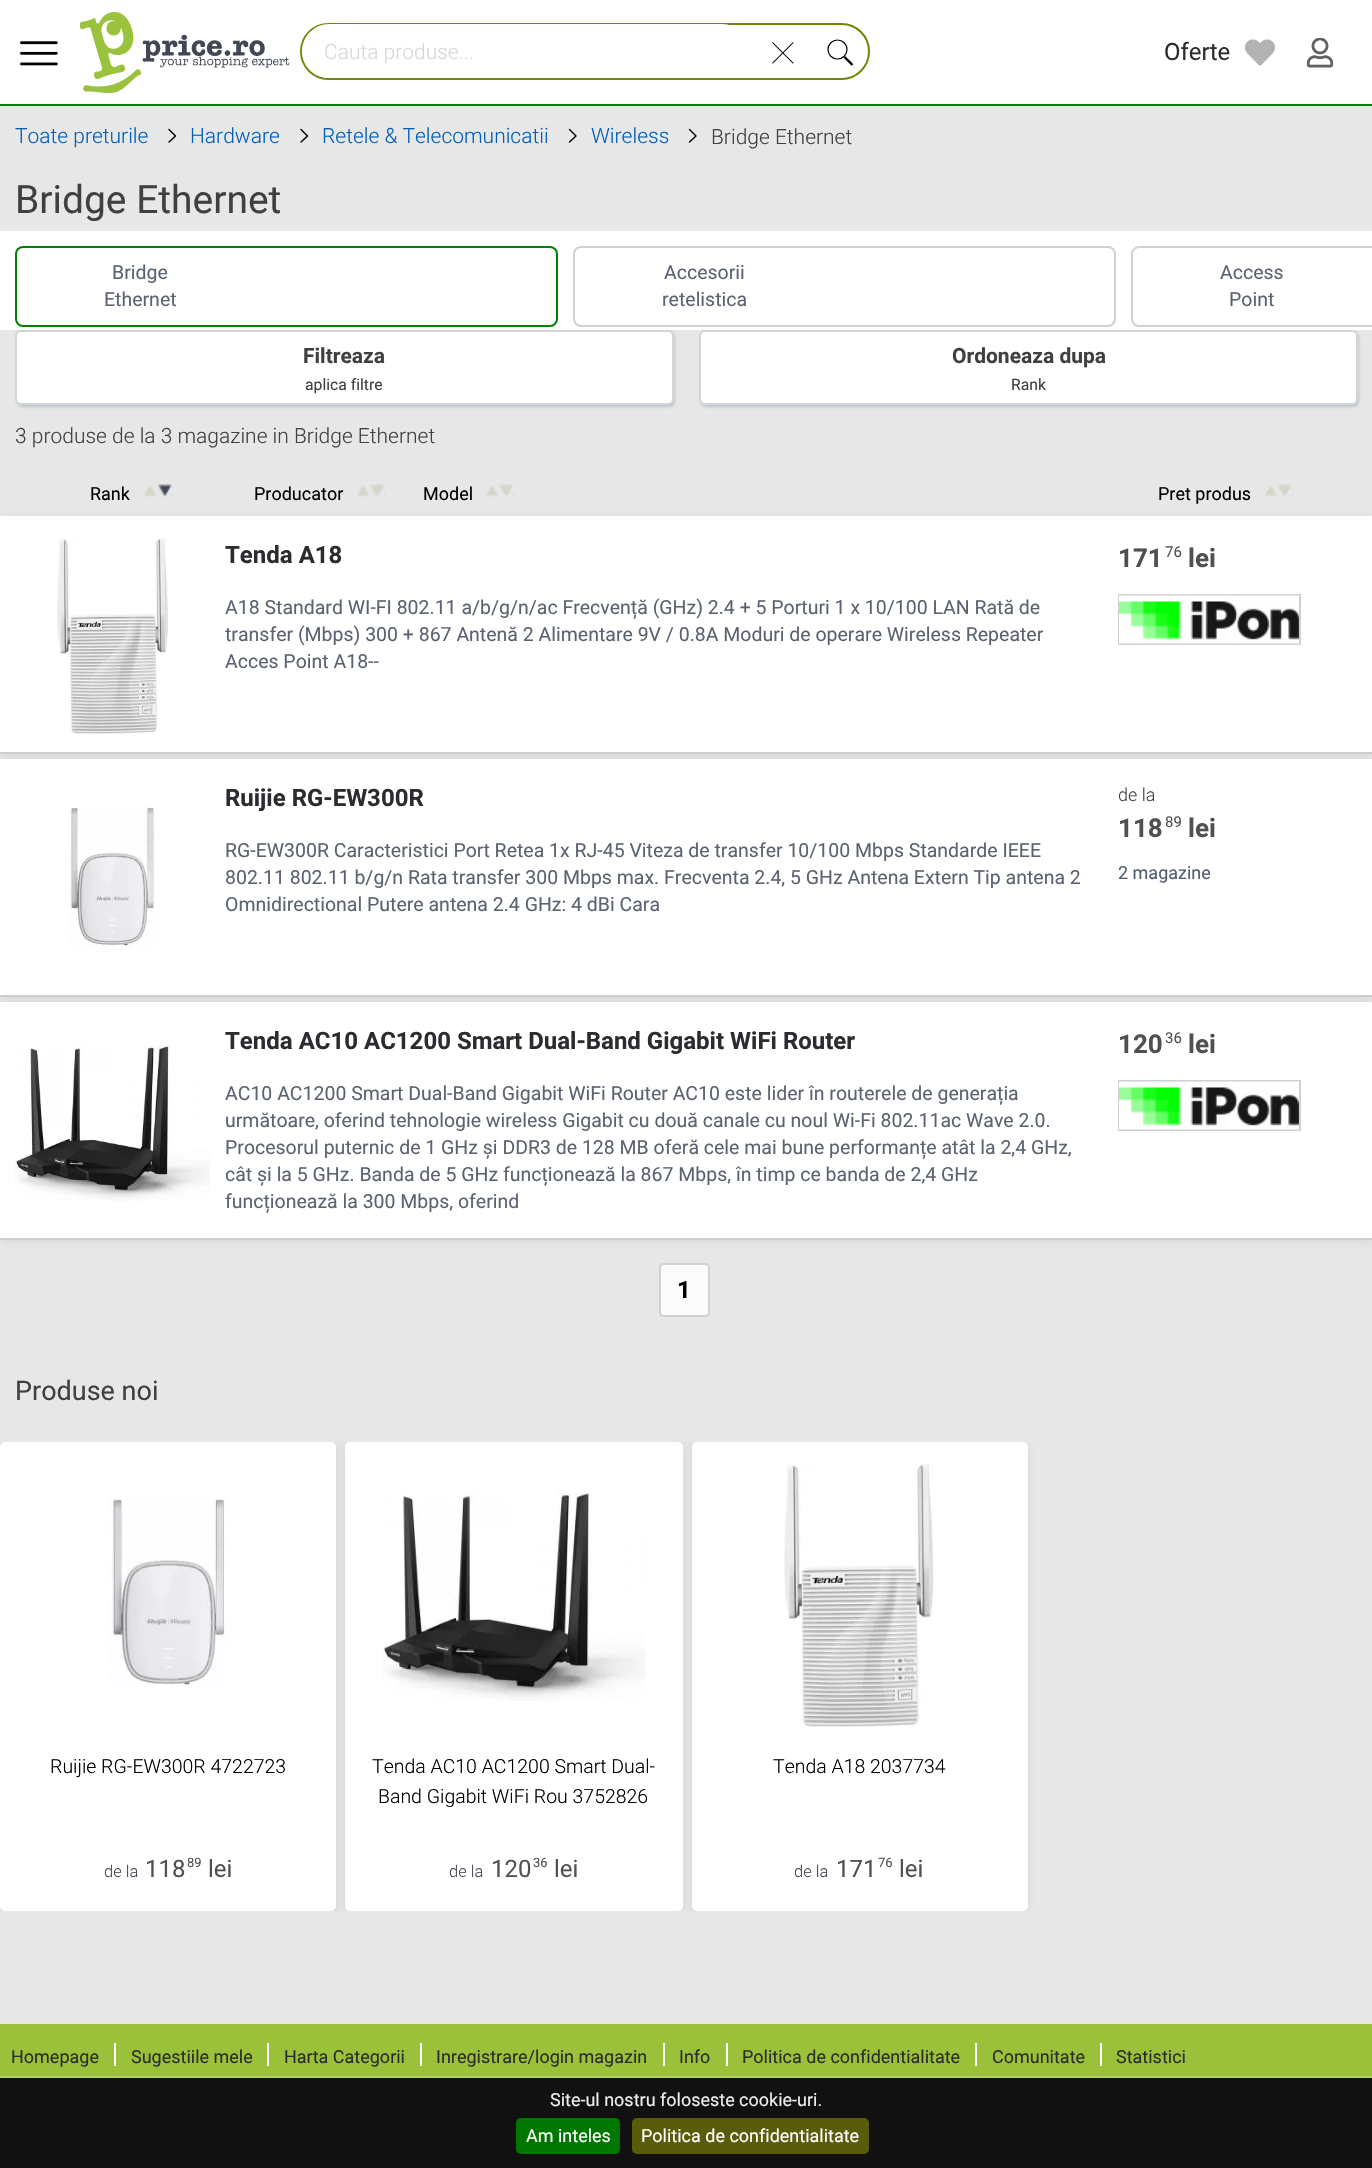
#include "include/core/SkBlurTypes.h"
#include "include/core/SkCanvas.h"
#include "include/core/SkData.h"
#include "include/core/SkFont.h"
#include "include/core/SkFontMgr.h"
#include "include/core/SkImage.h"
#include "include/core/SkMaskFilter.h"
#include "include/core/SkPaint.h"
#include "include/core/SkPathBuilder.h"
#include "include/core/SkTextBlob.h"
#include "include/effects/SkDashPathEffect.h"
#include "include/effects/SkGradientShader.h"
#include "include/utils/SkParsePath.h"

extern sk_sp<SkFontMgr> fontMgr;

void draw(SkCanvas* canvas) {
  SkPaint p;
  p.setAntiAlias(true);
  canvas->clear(SkColorSetRGB(232, 231, 231));
  p.setColor(SK_ColorWHITE);
  canvas->drawRect(SkRect::MakeLTRB(0, 0, 1372, 104), p);
  p.setColor(SkColorSetRGB(0, 128, 0));
  canvas->drawRect(SkRect::MakeLTRB(0, 104, 1372, 106), p);
  canvas->drawImageRect(SkImages::DeferredFromEncodedData(SkData::MakeFromFileName("images/1.png")), SkRect::MakeLTRB(20, 41, 58, 66), SkSamplingOptions());
  canvas->drawImageRect(SkImages::DeferredFromEncodedData(SkData::MakeFromFileName("images/2.png")), SkRect::MakeLTRB(80, 12, 290, 93), SkSamplingOptions());
  p.setStyle(SkPaint::kStroke_Style);
  p.setStrokeWidth(2);
  p.setColor(SkColorSetRGB(115, 132, 6));
  canvas->drawRoundRect(SkRect::MakeLTRB(301, 24, 869, 79), 27.5f, 27.5f, p);
  p.setStyle(SkPaint::kFill_Style);
  p.setColor(SK_ColorWHITE);
  canvas->drawRoundRect(SkRect::MakeLTRB(302, 24, 749, 78), 27, 27, p);
  canvas->drawImageRect(SkImages::DeferredFromEncodedData(SkData::MakeFromFileName("images/3.png")), SkRect::MakeLTRB(772, 42, 794, 64), SkSamplingOptions());
  p.setStyle(SkPaint::kStroke_Style);
  p.setStrokeWidth(1.2f);
  p.setColor(SK_ColorBLACK);
  canvas->drawCircle(837.5f, 49.5f, 9.5f, p);
  p.setStrokeWidth(2.4f);
  canvas->drawPath(SkPathBuilder().moveTo(844.5f, 57).lineTo(852.5f, 65).detach(), p);
  canvas->drawImageRect(SkImages::DeferredFromEncodedData(SkData::MakeFromFileName("images/4.png")), SkRect::MakeLTRB(1245, 39, 1275, 66), SkSamplingOptions());
  canvas->drawImageRect(SkImages::DeferredFromEncodedData(SkData::MakeFromFileName("images/5.png")), SkRect::MakeLTRB(1306, 38, 1334, 68), SkSamplingOptions());
  p.setStrokeWidth(1.4f);
  p.setStrokeCap(SkPaint::kRound_Cap);
  p.setStrokeJoin(SkPaint::kRound_Join);
  canvas->drawPath(SkPathBuilder().moveTo(175.5f, 136).lineTo(169, 142).moveTo(169, 129.5f).lineTo(175.5f, 136).detach(), p);
  canvas->drawPath(SkPathBuilder().moveTo(307.5f, 136).lineTo(301, 142).moveTo(301, 129.5f).lineTo(307.5f, 136).detach(), p);
  canvas->drawPath(SkPathBuilder().moveTo(576, 136).lineTo(569.5f, 142).moveTo(569.5f, 129.5f).lineTo(576, 136).detach(), p);
  canvas->drawPath(SkPathBuilder().moveTo(696, 136).lineTo(689.5f, 142).moveTo(689.5f, 129.5f).lineTo(696, 136).detach(), p);
  p.setStyle(SkPaint::kFill_Style);
  p.setColor(SkColorSetRGB(187, 198, 204));
  p.setMaskFilter(SkMaskFilter::MakeBlur(kNormal_SkBlurStyle, 1.5f));
  canvas->drawRoundRect(SkRect::MakeLTRB(17, 332, 675, 407), 6, 6, p);
  p.setMaskFilter(nullptr);
  p.setMaskFilter(SkMaskFilter::MakeBlur(kNormal_SkBlurStyle, 1.5f));
  canvas->drawRoundRect(SkRect::MakeLTRB(701, 332, 1359, 407), 6, 6, p);
  p.setMaskFilter(nullptr);
  p.setColor(SK_ColorWHITE);
  canvas->drawRect(SkRect::MakeLTRB(0, 231, 1372, 330), p);
  p.setStyle(SkPaint::kStroke_Style);
  p.setStrokeWidth(2);
  p.setStrokeCap(SkPaint::kButt_Cap);
  p.setStrokeJoin(SkPaint::kMiter_Join);
  p.setColor(SkColorSetRGB(0, 128, 0));
  canvas->drawRoundRect(SkRect::MakeLTRB(16, 247, 557, 326), 7, 7, p);
  p.setColor(SkColorSetRGB(209, 209, 209));
  canvas->drawRoundRect(SkRect::MakeLTRB(574, 247, 1115, 326), 7, 7, p);
  canvas->drawRoundRect(SkRect::MakeLTRB(1132, 247, 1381, 326), 7, 7, p);
  p.setStyle(SkPaint::kFill_Style);
  p.setColor(SK_ColorWHITE);
  canvas->drawRoundRect(SkRect::MakeLTRB(16, 331, 673, 404), 5, 5, p);
  p.setStyle(SkPaint::kStroke_Style);
  p.setColor(SkColorSetRGB(213, 213, 213));
  canvas->drawRoundRect(SkRect::MakeLTRB(16, 331, 673, 404), 5, 5, p);
  p.setStyle(SkPaint::kFill_Style);
  p.setColor(SK_ColorWHITE);
  canvas->drawRoundRect(SkRect::MakeLTRB(700, 331, 1357, 404), 5, 5, p);
  p.setStyle(SkPaint::kStroke_Style);
  p.setColor(SkColorSetRGB(213, 213, 213));
  canvas->drawRoundRect(SkRect::MakeLTRB(700, 331, 1357, 404), 5, 5, p);
  canvas->drawImageRect(SkImages::DeferredFromEncodedData(SkData::MakeFromFileName("images/6.png")), SkRect::MakeLTRB(144, 485, 156, 497), SkSamplingOptions());
  canvas->drawImageRect(SkImages::DeferredFromEncodedData(SkData::MakeFromFileName("images/7.png")), SkRect::MakeLTRB(157, 484, 173, 497), SkSamplingOptions());
  canvas->drawImageRect(SkImages::DeferredFromEncodedData(SkData::MakeFromFileName("images/8.png")), SkRect::MakeLTRB(158, 484, 172, 497), SkSamplingOptions());
  canvas->drawImageRect(SkImages::DeferredFromEncodedData(SkData::MakeFromFileName("images/9.png")), SkRect::MakeLTRB(357, 485, 369, 497), SkSamplingOptions());
  canvas->drawImageRect(SkImages::DeferredFromEncodedData(SkData::MakeFromFileName("images/10.png")), SkRect::MakeLTRB(370, 484, 386, 497), SkSamplingOptions());
  canvas->drawImageRect(SkImages::DeferredFromEncodedData(SkData::MakeFromFileName("images/11.png")), SkRect::MakeLTRB(372, 484, 384, 496), SkSamplingOptions());
  canvas->drawImageRect(SkImages::DeferredFromEncodedData(SkData::MakeFromFileName("images/6.png")), SkRect::MakeLTRB(486, 485, 498, 497), SkSamplingOptions());
  canvas->drawImageRect(SkImages::DeferredFromEncodedData(SkData::MakeFromFileName("images/7.png")), SkRect::MakeLTRB(499, 484, 515, 497), SkSamplingOptions());
  canvas->drawImageRect(SkImages::DeferredFromEncodedData(SkData::MakeFromFileName("images/12.png")), SkRect::MakeLTRB(501, 484, 513, 496), SkSamplingOptions());
  canvas->drawImageRect(SkImages::DeferredFromEncodedData(SkData::MakeFromFileName("images/13.png")), SkRect::MakeLTRB(1264, 485, 1277, 497), SkSamplingOptions());
  canvas->drawImageRect(SkImages::DeferredFromEncodedData(SkData::MakeFromFileName("images/14.png")), SkRect::MakeLTRB(1278, 484, 1293, 497), SkSamplingOptions());
  canvas->drawImageRect(SkImages::DeferredFromEncodedData(SkData::MakeFromFileName("images/15.png")), SkRect::MakeLTRB(1280, 484, 1292, 496), SkSamplingOptions());
  p.setStyle(SkPaint::kFill_Style);
  p.setColor(SkColorSetARGB(33, 0, 0, 0));
  p.setMaskFilter(SkMaskFilter::MakeBlur(kNormal_SkBlurStyle, 4));
  canvas->drawRect(SkRect::MakeLTRB(2, 519, 1371, 753), p);
  p.setMaskFilter(nullptr);
  p.setColor(SK_ColorWHITE);
  canvas->drawRect(SkRect::MakeLTRB(0, 516, 1372, 752), p);
  p.setColor(SkColorSetRGB(206, 206, 206));
  canvas->drawRect(SkRect::MakeLTRB(0, 752, 1372, 754), p);
  canvas->drawImageRect(SkImages::DeferredFromEncodedData(SkData::MakeFromFileName("images/16.png")), SkRect::MakeLTRB(57, 538, 168, 734), SkSamplingOptions());
  p.setStyle(SkPaint::kStroke_Style);
  p.setColor(SkColorSetRGB(208, 208, 208));
  canvas->drawRect(SkRect::MakeLTRB(1119, 595, 1300, 644), p);
  canvas->drawImageRect(SkImages::DeferredFromEncodedData(SkData::MakeFromFileName("images/17.png")), SkRect::MakeLTRB(1119, 595, 1299, 644), SkSamplingOptions());
  p.setStyle(SkPaint::kFill_Style);
  p.setColor(SkColorSetARGB(33, 0, 0, 0));
  p.setMaskFilter(SkMaskFilter::MakeBlur(kNormal_SkBlurStyle, 4));
  canvas->drawRect(SkRect::MakeLTRB(2, 762, 1371, 996), p);
  p.setMaskFilter(nullptr);
  p.setColor(SK_ColorWHITE);
  canvas->drawRect(SkRect::MakeLTRB(0, 759, 1372, 995), p);
  p.setColor(SkColorSetRGB(206, 206, 206));
  canvas->drawRect(SkRect::MakeLTRB(0, 995, 1372, 997), p);
  canvas->drawImageRect(SkImages::DeferredFromEncodedData(SkData::MakeFromFileName("images/18.png")), SkRect::MakeLTRB(68, 807, 156, 948), SkSamplingOptions());
  p.setColor(SkColorSetARGB(33, 0, 0, 0));
  p.setMaskFilter(SkMaskFilter::MakeBlur(kNormal_SkBlurStyle, 4));
  canvas->drawRect(SkRect::MakeLTRB(2, 1005, 1371, 1239), p);
  p.setMaskFilter(nullptr);
  p.setColor(SK_ColorWHITE);
  canvas->drawRect(SkRect::MakeLTRB(0, 1002, 1372, 1238), p);
  p.setColor(SkColorSetRGB(206, 206, 206));
  canvas->drawRect(SkRect::MakeLTRB(0, 1238, 1372, 1240), p);
  canvas->drawImageRect(SkImages::DeferredFromEncodedData(SkData::MakeFromFileName("images/19.png")), SkRect::MakeLTRB(15, 1045, 210, 1201), SkSamplingOptions());
  p.setStyle(SkPaint::kStroke_Style);
  p.setColor(SkColorSetRGB(208, 208, 208));
  canvas->drawRect(SkRect::MakeLTRB(1119, 1081, 1300, 1130), p);
  canvas->drawImageRect(SkImages::DeferredFromEncodedData(SkData::MakeFromFileName("images/17.png")), SkRect::MakeLTRB(1119, 1081, 1299, 1130), SkSamplingOptions());
  p.setStyle(SkPaint::kFill_Style);
  p.setColor(SkColorSetRGB(252, 252, 252));
  canvas->drawRoundRect(SkRect::MakeLTRB(660, 1264, 709, 1316), 4, 4, p);
  p.setStyle(SkPaint::kStroke_Style);
  p.setColor(SkColorSetRGB(209, 209, 209));
  canvas->drawRoundRect(SkRect::MakeLTRB(660, 1264, 709, 1316), 4, 4, p);
  canvas->save();
  canvas->clipRect(SkRect::MakeLTRB(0, 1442, 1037, 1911));
  p.setStyle(SkPaint::kFill_Style);
  p.setColor(SkColorSetARGB(33, 0, 0, 0));
  p.setMaskFilter(SkMaskFilter::MakeBlur(kNormal_SkBlurStyle, 4));
  canvas->drawRoundRect(SkRect::MakeLTRB(2, 1445, 335, 1911), 3, 3, p);
  p.setMaskFilter(nullptr);
  canvas->restore();
  p.setColor(SK_ColorWHITE);
  canvas->drawRoundRect(SkRect::MakeLTRB(0, 1442, 336, 1911), 5, 5, p);
  canvas->drawImageRect(SkImages::DeferredFromEncodedData(SkData::MakeFromFileName("images/20.png")), SkRect::MakeLTRB(109, 1499, 227, 1688), SkSamplingOptions());
  canvas->save();
  canvas->clipRect(SkRect::MakeLTRB(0, 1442, 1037, 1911));
  p.setColor(SkColorSetARGB(33, 0, 0, 0));
  p.setMaskFilter(SkMaskFilter::MakeBlur(kNormal_SkBlurStyle, 4));
  canvas->drawRoundRect(SkRect::MakeLTRB(347, 1445, 681, 1911), 3, 3, p);
  p.setMaskFilter(nullptr);
  canvas->restore();
  p.setColor(SK_ColorWHITE);
  canvas->drawRoundRect(SkRect::MakeLTRB(345, 1442, 683, 1911), 5, 5, p);
  canvas->drawImageRect(SkImages::DeferredFromEncodedData(SkData::MakeFromFileName("images/21.png")), SkRect::MakeLTRB(382, 1492, 645, 1701), SkSamplingOptions());
  canvas->save();
  canvas->clipRect(SkRect::MakeLTRB(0, 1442, 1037, 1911));
  p.setColor(SkColorSetARGB(33, 0, 0, 0));
  p.setMaskFilter(SkMaskFilter::MakeBlur(kNormal_SkBlurStyle, 4));
  canvas->drawRoundRect(SkRect::MakeLTRB(693, 1445, 1026, 1911), 3, 3, p);
  p.setMaskFilter(nullptr);
  canvas->restore();
  p.setColor(SK_ColorWHITE);
  canvas->drawRoundRect(SkRect::MakeLTRB(692, 1442, 1028, 1911), 5, 5, p);
  canvas->drawImageRect(SkImages::DeferredFromEncodedData(SkData::MakeFromFileName("images/22.png")), SkRect::MakeLTRB(784, 1464, 934, 1727), SkSamplingOptions());
  p.setColor(SkColorSetRGB(155, 193, 58));
  canvas->drawRect(SkRect::MakeLTRB(0, 2024, 1372, 2076), p);
  p.setColor(SkColorSetRGB(179, 208, 105));
  canvas->drawRect(SkRect::MakeLTRB(0, 2076, 1372, 2078), p);
  p.setColor(SK_ColorWHITE);
  canvas->drawRect(SkRect::MakeLTRB(114, 2043, 116, 2066), p);
  canvas->drawRect(SkRect::MakeLTRB(267, 2043, 269, 2066), p);
  canvas->drawRect(SkRect::MakeLTRB(420, 2043, 422, 2066), p);
  canvas->drawRect(SkRect::MakeLTRB(663, 2043, 665, 2066), p);
  canvas->drawRect(SkRect::MakeLTRB(726, 2043, 728, 2066), p);
  canvas->drawRect(SkRect::MakeLTRB(975, 2043, 977, 2066), p);
  canvas->drawRect(SkRect::MakeLTRB(1100, 2043, 1102, 2066), p);
  p.setColor(SkColorSetRGB(17, 17, 17));
  canvas->drawRect(SkRect::MakeLTRB(0, 2078, 1372, 2168), p);
  p.setColor(SkColorSetRGB(0, 119, 0));
  canvas->drawRoundRect(SkRect::MakeLTRB(516, 2118, 620, 2154), 5, 5, p);
  p.setColor(SkColorSetRGB(89, 92, 10));
  canvas->drawRoundRect(SkRect::MakeLTRB(632, 2118, 869, 2154), 5, 5, p);
  SkFont font1(fontMgr->matchFamilyStyle("Roboto", SkFontStyle(300, SkFontStyle::kNormal_Width, SkFontStyle::kUpright_Slant)), 21);
  font1.setSubpixel(true);
  p.setColor(SkColorSetRGB(215, 215, 215));
  canvas->drawString("Cauta produse...", 324, 59, font1, p);
  SkFont font2(fontMgr->matchFamilyStyle("Roboto", SkFontStyle::Normal()), 24);
  font2.setSubpixel(true);
  p.setColor(SkColorSetRGB(42, 44, 47));
  canvas->drawString("Oferte", 1164, 60, font2, p);
  p.setColor(SkColorSetRGB(0, 94, 184));
  canvas->drawString("Toate preturile", 15, 143, font1, p);
  canvas->drawString("Hardware", 190, 143, font1, p);
  canvas->drawString("Retele & Telecomunicatii", 322, 143, font1, p);
  canvas->drawString("Wireless", 591, 143, font1, p);
  p.setColor(SkColorSetRGB(64, 64, 64));
  canvas->drawString("Bridge Ethernet", 711, 144, font1, p);
  SkFont font3(fontMgr->matchFamilyStyle("Roboto", SkFontStyle::Normal()), 39);
  font3.setSubpixel(true);
  canvas->drawString("Bridge Ethernet", 15, 213, font3, p);
  SkFont font4(fontMgr->matchFamilyStyle("Roboto", SkFontStyle::Normal()), 19.5f);
  font4.setSubpixel(true);
  p.setColor(SkColorSetRGB(91, 99, 112));
  canvas->drawString("Bridge", 112, 279, font4, p);
  canvas->drawString("Ethernet", 104, 306, font4, p);
  canvas->drawString("Accesorii", 664, 279, font4, p);
  canvas->drawString("retelistica", 662, 306, font4, p);
  canvas->drawString("Access", 1220, 279, font4, p);
  canvas->drawString("Point", 1229, 306, font4, p);
  SkFont font5(fontMgr->matchFamilyStyle("Roboto", SkFontStyle::Bold()), 21);
  font5.setSubpixel(true);
  p.setColor(SkColorSetRGB(64, 64, 64));
  canvas->drawString("Filtreaza", 303, 363, font5, p);
  SkFont font6(fontMgr->matchFamilyStyle("Roboto", SkFontStyle::Normal()), 15.75f);
  font6.setSubpixel(true);
  canvas->drawString("aplica filtre", 305, 390, font6, p);
  canvas->drawString("Ordoneaza dupa", 952, 363, font5, p);
  canvas->drawString("Rank", 1011, 390, font6, p);
  canvas->drawString("3 produse de la 3 magazine in Bridge Ethernet", 15, 443, font1, p);
  SkFont font7(fontMgr->matchFamilyStyle("Roboto", SkFontStyle::Normal()), 18);
  font7.setSubpixel(true);
  p.setColor(SK_ColorBLACK);
  canvas->drawString("Rank", 90, 500, font7, p);
  canvas->drawString("Producator", 254, 500, font7, p);
  canvas->drawString("Model", 423, 500, font7, p);
  canvas->drawString("Pret produs", 1158, 500, font7, p);
  SkFont font8(fontMgr->matchFamilyStyle("Roboto", SkFontStyle::Bold()), 24);
  font8.setSubpixel(true);
  p.setColor(SkColorSetRGB(42, 44, 47));
  canvas->drawString("Tenda A18", 225, 563, font8, p);
  p.setColor(SkColorSetRGB(91, 99, 112));
  canvas->drawString("A18 Standard WI-FI 802.11 a/b/g/n/ac Frecvență (GHz) 2.4 + 5 Porturi 1 x 10/100 LAN Rată de", 225, 614, font4, p);
  canvas->drawString("transfer (Mbps) 300 + 867 Antenă 2 Alimentare 9V / 0.8A Moduri de operare Wireless Repeater", 225, 641, font4, p);
  canvas->drawString("Acces Point A18--", 225, 668, font4, p);
  SkFont font9(fontMgr->matchFamilyStyle("Roboto", SkFontStyle::Bold()), 26);
  font9.setSubpixel(true);
  p.setColor(SkColorSetRGB(80, 80, 80));
  canvas->drawString("171", 1118, 567, font9, p);
  SkFont font10(fontMgr->matchFamilyStyle("Roboto", SkFontStyle::Normal()), 15);
  font10.setSubpixel(true);
  canvas->drawString("76", 1165, 557, font10, p);
  canvas->drawString("lei", 1188, 567, font9, p);
  p.setColor(SkColorSetRGB(42, 44, 47));
  canvas->drawString("Ruijie RG-EW300R", 225, 806, font8, p);
  p.setColor(SkColorSetRGB(91, 99, 112));
  canvas->drawString("RG-EW300R Caracteristici Port Retea 1x RJ-45 Viteza de transfer 10/100 Mbps Standarde IEEE", 225, 857, font4, p);
  canvas->drawString("802.11 802.11 b/g/n Rata transfer 300 Mbps max. Frecventa 2.4, 5 GHz Antena Extern Tip antena 2", 225, 884, font4, p);
  canvas->drawString("Omnidirectional Putere antena 2.4 GHz: 4 dBi Cara", 225, 911, font4, p);
  SkFont font11(fontMgr->matchFamilyStyle("Roboto", SkFontStyle(300, SkFontStyle::kNormal_Width, SkFontStyle::kUpright_Slant)), 18);
  font11.setSubpixel(true);
  p.setColor(SkColorSetRGB(64, 64, 64));
  canvas->drawString("de la", 1118, 801, font11, p);
  p.setColor(SkColorSetRGB(80, 80, 80));
  canvas->drawString("118", 1118, 837, font9, p);
  canvas->drawString("89", 1165, 827, font10, p);
  canvas->drawString("lei", 1188, 837, font9, p);
  p.setColor(SkColorSetRGB(79, 94, 111));
  canvas->drawString("2 magazine", 1118, 879, font7, p);
  p.setColor(SkColorSetRGB(42, 44, 47));
  canvas->drawString("Tenda AC10 AC1200 Smart Dual-Band Gigabit WiFi Router", 225, 1049, font8, p);
  p.setColor(SkColorSetRGB(91, 99, 112));
  canvas->drawString("AC10 AC1200 Smart Dual-Band Gigabit WiFi Router AC10 este lider în routerele de generația", 225, 1100, font4, p);
  canvas->drawString("următoare, oferind tehnologie wireless Gigabit cu două canale cu noul Wi-Fi 802.11ac Wave 2.0.", 225, 1127, font4, p);
  canvas->drawString("Procesorul puternic de 1 GHz și DDR3 de 128 MB oferă cele mai bune performanțe atât la 2,4 GHz,", 225, 1154, font4, p);
  canvas->drawString("cât și la 5 GHz. Banda de 5 GHz funcționează la 867 Mbps, în timp ce banda de 2,4 GHz", 225, 1181, font4, p);
  canvas->drawString("funcționează la 300 Mbps, oferind", 225, 1208, font4, p);
  p.setColor(SkColorSetRGB(80, 80, 80));
  canvas->drawString("120", 1118, 1053, font9, p);
  canvas->drawString("36", 1165, 1043, font10, p);
  canvas->drawString("lei", 1188, 1053, font9, p);
  p.setColor(SK_ColorBLACK);
  canvas->drawString("1", 677, 1298, font8, p);
  SkFont font12(fontMgr->matchFamilyStyle("Roboto", SkFontStyle::Normal()), 27);
  font12.setSubpixel(true);
  p.setColor(SkColorSetRGB(64, 64, 64));
  canvas->drawString("Produse noi", 15, 1400, font12, p);
  SkFont font13(fontMgr->matchFamilyStyle("Roboto", SkFontStyle(300, SkFontStyle::kNormal_Width, SkFontStyle::kUpright_Slant)), 19.5f);
  font13.setSubpixel(true);
  p.setColor(SK_ColorBLACK);
  canvas->drawString("Ruijie RG-EW300R 4722723", 50, 1773, font13, p);
  SkFont font14(fontMgr->matchFamilyStyle("Roboto", SkFontStyle(300, SkFontStyle::kNormal_Width, SkFontStyle::kUpright_Slant)), 16.5f);
  font14.setSubpixel(true);
  p.setColor(SkColorSetRGB(65, 71, 83));
  canvas->drawString("de la", 104, 1877, font14, p);
  p.setColor(SkColorSetRGB(80, 80, 80));
  canvas->drawString("118", 145, 1877, font2, p);
  SkFont font15(fontMgr->matchFamilyStyle("Roboto", SkFontStyle::Normal()), 13);
  font15.setSubpixel(true);
  canvas->drawString("89", 187, 1867, font15, p);
  canvas->drawString("lei", 208, 1877, font2, p);
  p.setColor(SK_ColorBLACK);
  canvas->drawString("Tenda AC10 AC1200 Smart Dual-", 372, 1773, font13, p);
  canvas->drawString("Band Gigabit WiFi Rou 3752826", 378, 1803, font13, p);
  p.setColor(SkColorSetRGB(65, 71, 83));
  canvas->drawString("de la", 449, 1877, font14, p);
  p.setColor(SkColorSetRGB(80, 80, 80));
  canvas->drawString("120", 491, 1877, font2, p);
  canvas->drawString("36", 533, 1867, font15, p);
  canvas->drawString("lei", 554, 1877, font2, p);
  p.setColor(SK_ColorBLACK);
  canvas->drawString("Tenda A18 2037734", 773, 1773, font13, p);
  p.setColor(SkColorSetRGB(65, 71, 83));
  canvas->drawString("de la", 794, 1877, font14, p);
  p.setColor(SkColorSetRGB(80, 80, 80));
  canvas->drawString("171", 836, 1877, font2, p);
  canvas->drawString("76", 878, 1867, font15, p);
  canvas->drawString("lei", 899, 1877, font2, p);
  p.setColor(SkColorSetRGB(42, 44, 47));
  canvas->drawString("Homepage", 11, 2063, font7, p);
  canvas->drawString("Sugestiile mele", 131, 2063, font7, p);
  canvas->drawString("Harta Categorii", 284, 2063, font7, p);
  canvas->drawString("Inregistrare/login magazin", 436, 2063, font7, p);
  canvas->drawString("Info", 679, 2063, font7, p);
  canvas->drawString("Politica de confidentialitate", 742, 2063, font7, p);
  canvas->drawString("Comunitate", 992, 2063, font7, p);
  canvas->drawString("Statistici", 1116, 2063, font7, p);
  p.setColor(SkColorSetRGB(238, 238, 238));
  canvas->drawString("Site-ul nostru foloseste cookie-uri.", 550, 2106, font7, p);
  p.setColor(SK_ColorWHITE);
  canvas->drawString("Am inteles", 526, 2142, font7, p);
  canvas->drawString("Politica de confidentialitate", 641, 2142, font7, p);
}
